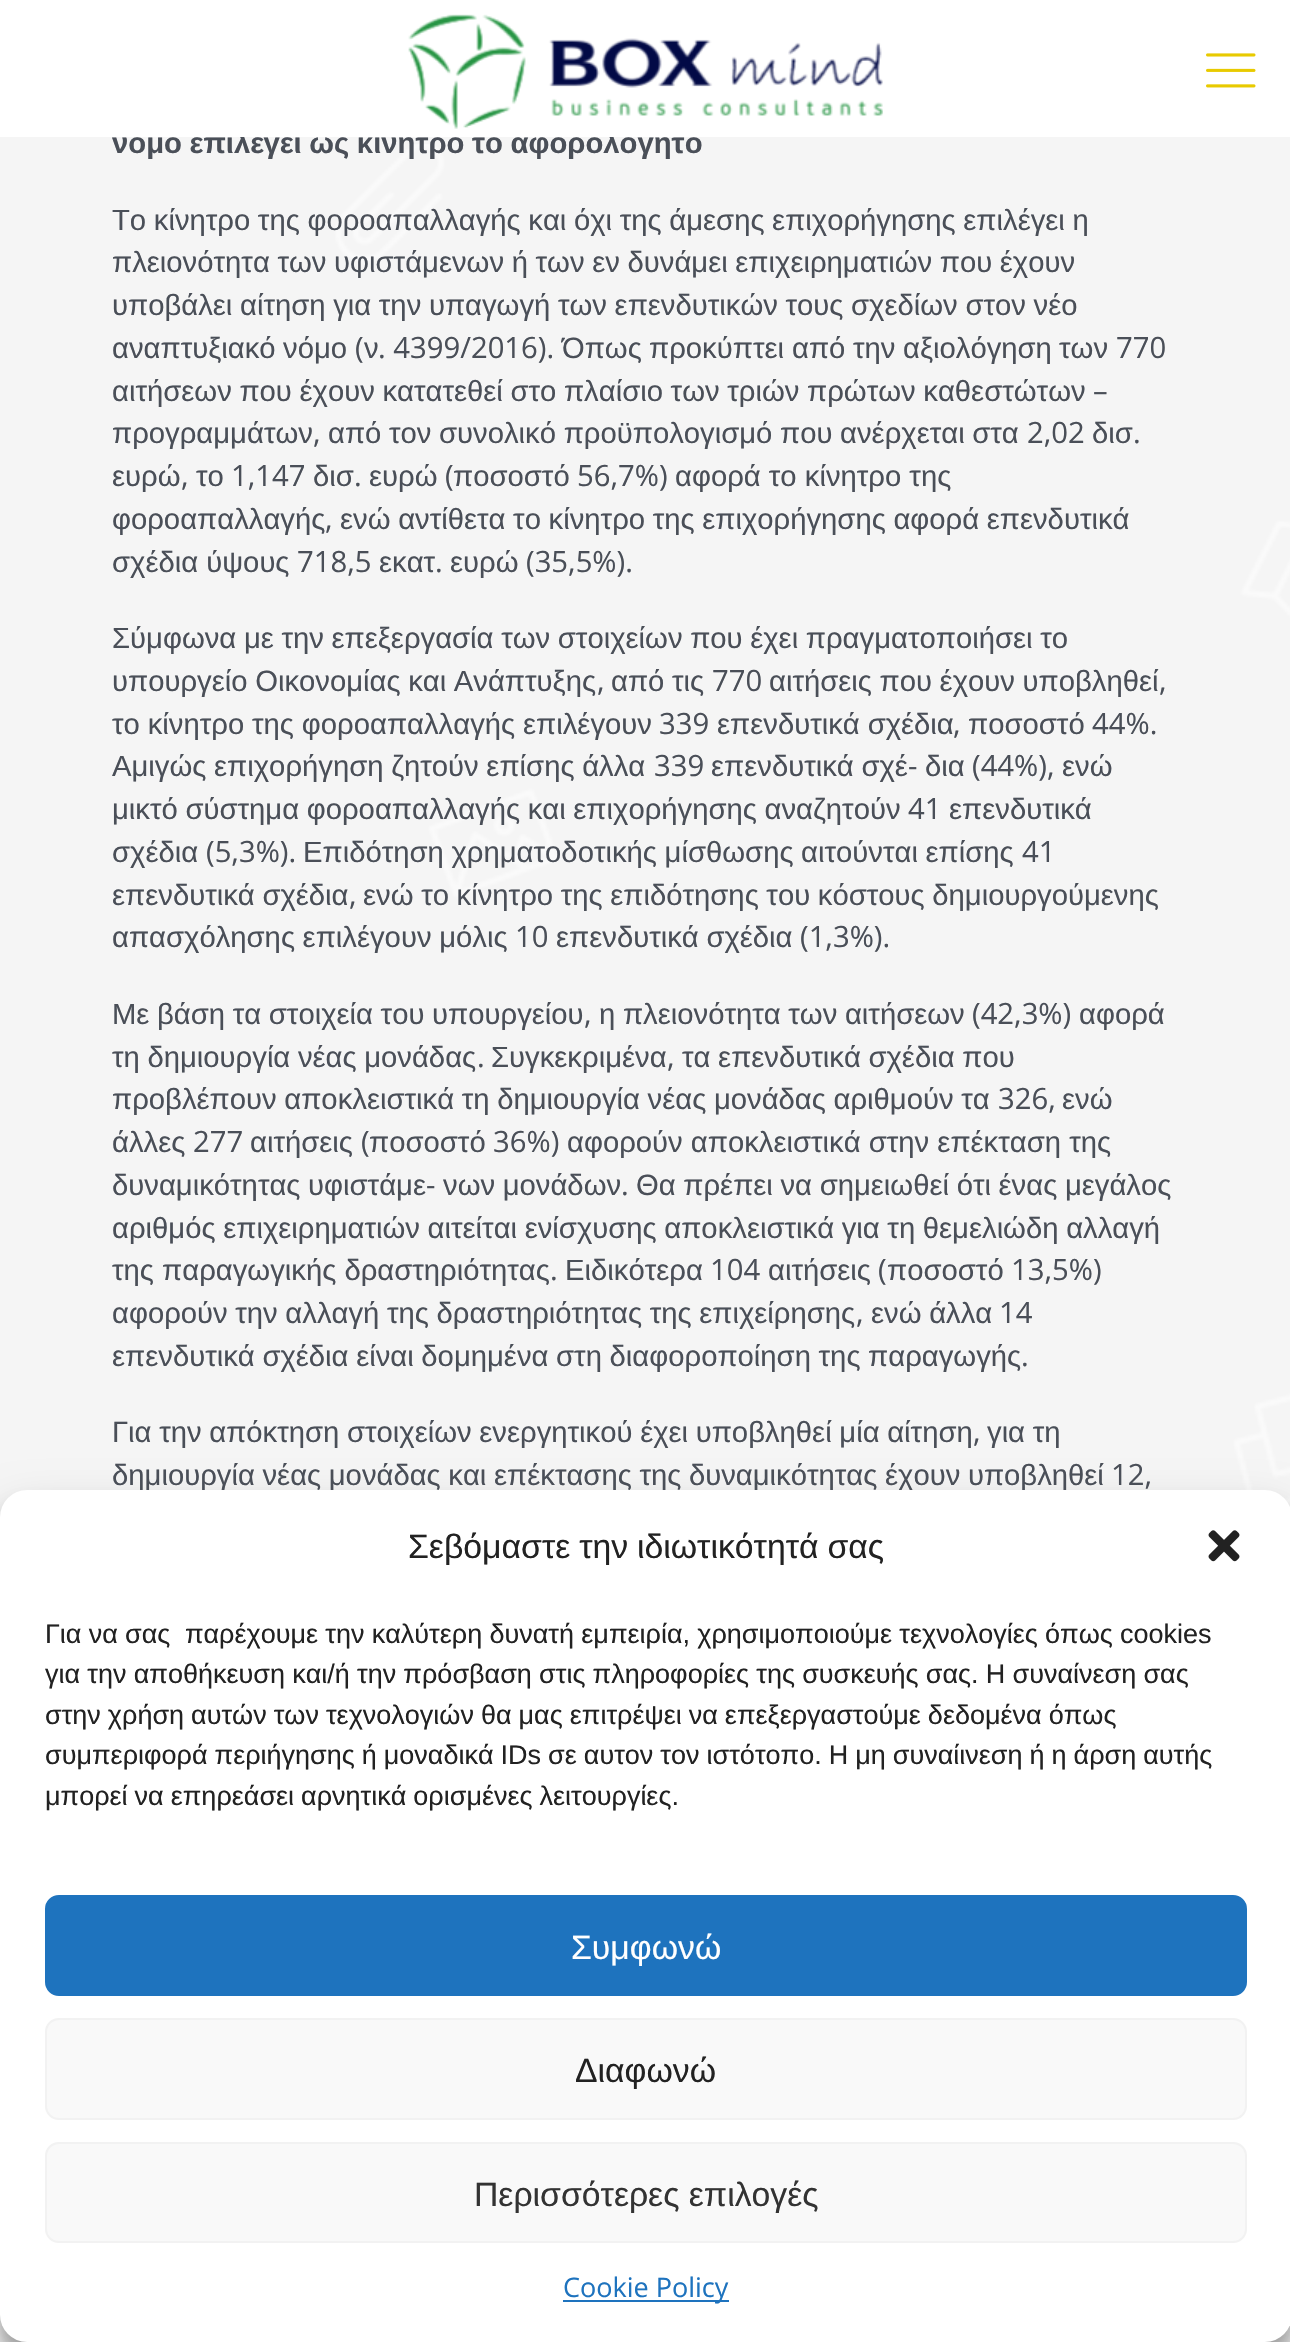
#include "include/core/SkBlurTypes.h"
#include "include/core/SkCanvas.h"
#include "include/core/SkData.h"
#include "include/core/SkFont.h"
#include "include/core/SkFontMgr.h"
#include "include/core/SkImage.h"
#include "include/core/SkMaskFilter.h"
#include "include/core/SkPaint.h"
#include "include/core/SkPathBuilder.h"
#include "include/core/SkTextBlob.h"
#include "include/effects/SkDashPathEffect.h"
#include "include/effects/SkGradientShader.h"
#include "include/utils/SkParsePath.h"

extern sk_sp<SkFontMgr> fontMgr;

void draw(SkCanvas* canvas) {
  SkPaint p;
  p.setAntiAlias(true);
  auto spacedText = [&](const char* s, float x, float y, const SkFont& font, const SkPaint& ink, float letter, float word) {
    std::vector<SkGlyphID> glyphs(font.countText(s, strlen(s), SkTextEncoding::kUTF8));
    std::vector<float> xs(glyphs.size());
    font.textToGlyphs(s, strlen(s), SkTextEncoding::kUTF8, glyphs);
    font.getXPos(glyphs, xs, x);
    float extra = 0;
    for (size_t i = 0; i < glyphs.size(); i++) {
      xs[i] += extra;
      extra += letter + word * (glyphs[i] == font.unicharToGlyph(' '));
    }
    canvas->drawTextBlob(SkTextBlob::MakeFromPosHGlyphs(glyphs, xs, y, font), 0, 0, ink);
  };
  canvas->clear(SkColorSetRGB(245, 245, 245));
  canvas->drawImageRect(SkImages::DeferredFromEncodedData(SkData::MakeFromFileName("images/1.png")), SkRect::MakeLTRB(334, 144, 1290, 1506), SkSamplingOptions());
  p.setColor(SkColorSetARGB(59, 0, 0, 0));
  p.setMaskFilter(SkMaskFilter::MakeBlur(kNormal_SkBlurStyle, 7));
  canvas->drawRoundRect(SkRect::MakeLTRB(0, 1503, 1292, 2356), 27, 27, p);
  p.setMaskFilter(nullptr);
  p.setColor(SkColorSetARGB(48, 0, 0, 0));
  p.setMaskFilter(SkMaskFilter::MakeBlur(kNormal_SkBlurStyle, 22.5f));
  canvas->drawRoundRect(SkRect::MakeLTRB(0, 1512, 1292, 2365), 27, 27, p);
  p.setMaskFilter(nullptr);
  SkFont font1(fontMgr->matchFamilyStyle("Liberation Sans", SkFontStyle::Bold()), 29.25f);
  font1.setSubpixel(true);
  p.setColor(SkColorSetRGB(74, 79, 88));
  spacedText("νόμο επιλέγει ως κίνητρο το αφορολόγητο", 112, 153, font1, p, 0, -0.5f);
  p.setColor(SK_ColorWHITE);
  canvas->drawRect(SkRect::MakeLTRB(0, 0, 1290, 137), p);
  canvas->drawImageRect(SkImages::DeferredFromEncodedData(SkData::MakeFromFileName("images/3.png")), SkRect::MakeLTRB(1206, 53, 1256, 88), SkSamplingOptions());
  canvas->drawImageRect(SkImages::DeferredFromEncodedData(SkData::MakeFromFileName("images/2.png")), SkRect::MakeLTRB(408, 14, 883, 129), SkSamplingOptions());
  SkFont font2(fontMgr->matchFamilyStyle("Liberation Sans", SkFontStyle::Normal()), 29.25f);
  font2.setSubpixel(true);
  p.setColor(SkColorSetRGB(74, 79, 88));
  spacedText("Το κίνητρο της φοροαπαλλαγής και όχι της άμεσης επιχορήγησης επιλέγει η", 112, 230, font2, p, 0, -0.5f);
  spacedText("πλειονότητα των υφιστάμενων ή των εν δυνάμει επιχειρηματιών που έχουν", 112, 272, font2, p, 0, -0.5f);
  spacedText("υποβάλει αίτηση για την υπαγωγή των επενδυτικών τους σχεδίων στον νέο", 112, 315, font2, p, 0, -0.5f);
  canvas->drawString("αναπτυξιακό", 112, 358, font2, p);
  canvas->drawString("νόμο", 283, 358, font2, p);
  SkFont font3(fontMgr->matchFamilyStyle("Open Sans", SkFontStyle::Normal()), 29.25f);
  font3.setSubpixel(true);
  canvas->drawString("(", 355, 358, font3, p);
  canvas->drawString("ν", 364, 358, font2, p);
  canvas->drawString(". 4399/2016).", 378, 358, font3, p);
  canvas->drawString("Όπως", 562, 358, font2, p);
  canvas->drawString("προκύπτει", 649, 358, font2, p);
  canvas->drawString("από", 792, 358, font2, p);
  canvas->drawString("την", 853, 358, font2, p);
  canvas->drawString("αξιολόγηση", 903, 358, font2, p);
  canvas->drawString("των", 1059, 358, font2, p);
  canvas->drawString("770", 1116, 358, font3, p);
  spacedText("αιτήσεων που έχουν κατατεθεί στο πλαίσιο των τριών πρώτων καθεστώτων", 112, 401, font2, p, 0, -0.5f);
  canvas->drawString("–", 1093, 401, font3, p);
  canvas->drawString("προγραμμάτων", 112, 443, font2, p);
  canvas->drawString(",", 313, 443, font3, p);
  spacedText("από τον συνολικό προϋπολογισμό που ανέρχεται στα", 328, 443, font2, p, 0, -0.5f);
  canvas->drawString("2,02", 1027, 443, font3, p);
  canvas->drawString("δισ", 1092, 443, font2, p);
  canvas->drawString(".", 1133, 443, font3, p);
  canvas->drawString("ευρώ", 112, 486, font2, p);
  canvas->drawString(",", 181, 486, font3, p);
  canvas->drawString("το", 196, 486, font2, p);
  canvas->drawString("1,147", 231, 486, font3, p);
  canvas->drawString("δισ", 313, 486, font2, p);
  canvas->drawString(".", 354, 486, font3, p);
  canvas->drawString("ευρώ", 369, 486, font2, p);
  canvas->drawString("(", 445, 486, font3, p);
  canvas->drawString("ποσοστό", 453, 486, font2, p);
  canvas->drawString("56,7%)", 577, 486, font3, p);
  canvas->drawString("αφορά το κίνητρο της", 675, 486, font2, p);
  canvas->drawString("φοροαπαλλαγής", 112, 529, font2, p);
  canvas->drawString(",", 325, 529, font3, p);
  spacedText("ενώ αντίθετα το κίνητρο της επιχορήγησης αφορά επενδυτικά", 340, 529, font2, p, 0, -0.5f);
  canvas->drawString("σχέδια ύψους", 112, 572, font2, p);
  canvas->drawString("718,5", 297, 572, font3, p);
  canvas->drawString("εκατ", 379, 572, font2, p);
  canvas->drawString(".", 435, 572, font3, p);
  canvas->drawString("ευρώ", 450, 572, font2, p);
  canvas->drawString("(35,5%).", 526, 572, font3, p);
  spacedText("Σύμφωνα με την επεξεργασία των στοιχείων που έχει πραγματοποιήσει το", 112, 648, font2, p, 0, -0.5f);
  spacedText("υπουργείο Οικονομίας και Ανάπτυξης", 112, 691, font2, p, 0, -0.5f);
  canvas->drawString(",", 597, 691, font3, p);
  spacedText("από τις", 611, 691, font2, p, 0, -0.5f);
  canvas->drawString("770", 712, 691, font3, p);
  spacedText("αιτήσεις που έχουν υποβληθεί", 769, 691, font2, p, 0, -0.5f);
  canvas->drawString(",", 1159, 691, font3, p);
  spacedText("το κίνητρο της φοροαπαλλαγής επιλέγουν", 112, 734, font2, p, 0, -0.25f);
  canvas->drawString("339", 659, 734, font3, p);
  spacedText("επενδυτικά σχέδια", 717, 734, font2, p, 0, -0.25f);
  canvas->drawString(",", 953, 734, font3, p);
  canvas->drawString("ποσοστό", 968, 734, font2, p);
  canvas->drawString("44%.", 1092, 734, font3, p);
  spacedText("Αμιγώς επιχορήγηση ζητούν επίσης άλλα", 112, 776, font2, p, 0, -0.5f);
  canvas->drawString("339", 654, 776, font3, p);
  spacedText("επενδυτικά σχέ", 711, 776, font2, p, 0, -0.5f);
  canvas->drawString("-", 908, 776, font3, p);
  canvas->drawString("δια", 925, 776, font2, p);
  canvas->drawString("(44%),", 972, 776, font3, p);
  canvas->drawString("ενώ", 1062, 776, font2, p);
  spacedText("μικτό σύστημα φοροαπαλλαγής και επιχορήγησης αναζητούν", 112, 819, font2, p, 0, -0.5f);
  canvas->drawString("41", 908, 819, font3, p);
  canvas->drawString("επενδυτικά", 949, 819, font2, p);
  canvas->drawString("σχέδια", 112, 862, font2, p);
  canvas->drawString("(5,3%).", 206, 862, font3, p);
  spacedText("Επιδότηση χρηματοδοτικής μίσθωσης αιτούνται επίσης", 303, 862, font2, p, 0, -0.5f);
  canvas->drawString("41", 1022, 862, font3, p);
  spacedText("επενδυτικά σχέδια", 112, 905, font2, p, 0, -0.5f);
  canvas->drawString(",", 349, 905, font3, p);
  spacedText("ενώ το κίνητρο της επιδότησης του κόστους δημιουργούμενης", 363, 905, font2, p, 0, -0.5f);
  spacedText("απασχόλησης επιλέγουν μόλις", 112, 947, font2, p, 0, -0.5f);
  canvas->drawString("10", 515, 947, font3, p);
  spacedText("επενδυτικά σχέδια", 556, 947, font2, p, 0, -0.5f);
  canvas->drawString("(1,3%).", 800, 947, font3, p);
  spacedText("Με βάση τα στοιχεία του υπουργείου", 112, 1024, font2, p, 0, -0.5f);
  canvas->drawString(",", 584, 1024, font3, p);
  spacedText("η πλειονότητα των αιτήσεων", 599, 1024, font2, p, 0, -0.5f);
  canvas->drawString("(42,3%)", 972, 1024, font3, p);
  canvas->drawString("αφορά", 1079, 1024, font2, p);
  spacedText("τη δημιουργία νέας μονάδας", 112, 1067, font2, p, 0, -0.5f);
  canvas->drawString(".", 477, 1067, font3, p);
  canvas->drawString("Συγκεκριμένα", 491, 1067, font2, p);
  canvas->drawString(",", 667, 1067, font3, p);
  spacedText("τα επενδυτικά σχέδια που", 682, 1067, font2, p, 0, -0.5f);
  spacedText("προβλέπουν αποκλειστικά τη δημιουργία νέας μονάδας αριθμούν τα", 112, 1109, font2, p, 0, -0.5f);
  canvas->drawString("326,", 998, 1109, font3, p);
  canvas->drawString("ενώ", 1062, 1109, font2, p);
  canvas->drawString("άλλες", 112, 1152, font2, p);
  canvas->drawString("277", 193, 1152, font3, p);
  canvas->drawString("αιτήσεις", 250, 1152, font2, p);
  canvas->drawString("(", 361, 1152, font3, p);
  canvas->drawString("ποσοστό", 369, 1152, font2, p);
  canvas->drawString("36%)", 493, 1152, font3, p);
  canvas->drawString("αφορούν αποκλειστικά στην επέκταση της", 567, 1152, font2, p);
  spacedText("δυναμικότητας υφιστάμε", 112, 1195, font2, p, 0, -0.5f);
  canvas->drawString("-", 426, 1195, font3, p);
  spacedText("νων μονάδων", 443, 1195, font2, p, 0, -0.5f);
  spacedText("Θα πρέπει να σημειωθεί ότι ένας μεγάλος", 636, 1195, font2, p, 0, -0.5f);
  canvas->drawString(".", 621, 1195, font3, p);
  spacedText("αριθμός επιχειρηματιών αιτείται ενίσχυσης αποκλειστικά για τη θεμελιώδη αλλαγή", 112, 1238, font2, p, 0, -0.5f);
  canvas->drawString("της παραγωγικής δραστηριότητας", 112, 1280, font2, p);
  canvas->drawString(".", 550, 1280, font3, p);
  canvas->drawString("Ειδικότερα", 565, 1280, font2, p);
  canvas->drawString("104", 710, 1280, font3, p);
  canvas->drawString("αιτήσεις", 768, 1280, font2, p);
  canvas->drawString("(", 878, 1280, font3, p);
  canvas->drawString("ποσοστό", 887, 1280, font2, p);
  canvas->drawString("13,5%)", 1011, 1280, font3, p);
  spacedText("αφορούν την αλλαγή της δραστηριότητας της επιχείρησης", 112, 1323, font2, p, 0, -0.5f);
  canvas->drawString(",", 856, 1323, font3, p);
  spacedText("ενώ άλλα", 871, 1323, font2, p, 0, -0.5f);
  canvas->drawString("14", 999, 1323, font3, p);
  spacedText("επενδυτικά σχέδια είναι δομημένα στη διαφοροποίηση της παραγωγής", 112, 1366, font2, p, 0, -0.5f);
  canvas->drawString(".", 1021, 1366, font3, p);
  spacedText("Για την απόκτηση στοιχείων ενεργητικού έχει υποβληθεί μία αίτηση", 112, 1442, font2, p, 0, -0.5f);
  canvas->drawString(",", 973, 1442, font3, p);
  spacedText("για τη", 987, 1442, font2, p, 0, -0.5f);
  spacedText("δημιουργία νέας μονάδας και επέκτασης της δυναμικότητας έχουν υποβληθεί", 112, 1485, font2, p, 0, -0.5f);
  canvas->drawString("12,", 1111, 1485, font3, p);
  p.setColor(SK_ColorWHITE);
  canvas->drawRoundRect(SkRect::MakeLTRB(0, 1490, 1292, 2342), 27, 27, p);
  SkFont font4(fontMgr->matchFamilyStyle("Liberation Sans", SkFontStyle::Normal()), 33.75f);
  font4.setSubpixel(true);
  p.setColor(SkColorSetRGB(34, 34, 34));
  spacedText("Σεβόμαστε την ιδιωτικότητά σας", 408, 1558, font4, p, 0, -0.5f);
  canvas->drawImageRect(SkImages::DeferredFromEncodedData(SkData::MakeFromFileName("images/4.png")), SkRect::MakeLTRB(1208, 1530, 1240, 1562), SkSamplingOptions());
  SkFont font5(fontMgr->matchFamilyStyle("Liberation Sans", SkFontStyle::Normal()), 27);
  font5.setSubpixel(true);
  spacedText("Για να σας  παρέχουμε την καλύτερη δυνατή εμπειρία, χρησιμοποιούμε τεχνολογίες όπως cookies", 45, 1643, font5, p, 0, -0.25f);
  spacedText("για την αποθήκευση και/ή την πρόσβαση στις πληροφορίες της συσκευής σας. Η συναίνεση σας", 45, 1683, font5, p, 0, -0.3f);
  spacedText("στην χρήση αυτών των τεχνολογιών θα μας επιτρέψει να επεξεργαστούμε δεδομένα όπως", 45, 1724, font5, p, 0, -0.5f);
  spacedText("συμπεριφορά περιήγησης ή μοναδικά IDs σε αυτον τον ιστότοπο. Η μη συναίινεση ή η άρση αυτής", 45, 1764, font5, p, 0, -0.5f);
  spacedText("μπορεί να επηρεάσει αρνητικά ορισμένες λειτουργίες.", 45, 1805, font5, p, 0, -0.5f);
  p.setColor(SkColorSetRGB(30, 115, 190));
  canvas->drawRoundRect(SkRect::MakeLTRB(46, 1896, 1246, 1995), 13, 13, p);
  p.setStyle(SkPaint::kStroke_Style);
  p.setStrokeWidth(2);
  canvas->drawRoundRect(SkRect::MakeLTRB(46, 1896, 1246, 1995), 13, 13, p);
  p.setStyle(SkPaint::kFill_Style);
  p.setColor(SK_ColorWHITE);
  canvas->drawString("Συμφωνώ", 571, 1959, font4, p);
  p.setColor(SkColorSetRGB(249, 249, 249));
  canvas->drawRoundRect(SkRect::MakeLTRB(46, 2019, 1246, 2119), 13, 13, p);
  p.setStyle(SkPaint::kStroke_Style);
  p.setColor(SkColorSetRGB(242, 242, 242));
  canvas->drawRoundRect(SkRect::MakeLTRB(46, 2019, 1246, 2119), 13, 13, p);
  p.setStyle(SkPaint::kFill_Style);
  p.setColor(SkColorSetRGB(34, 34, 34));
  canvas->drawString("Διαφωνώ", 575, 2082, font4, p);
  p.setColor(SkColorSetRGB(249, 249, 249));
  canvas->drawRoundRect(SkRect::MakeLTRB(46, 2143, 1246, 2242), 13, 13, p);
  p.setStyle(SkPaint::kStroke_Style);
  p.setColor(SkColorSetRGB(242, 242, 242));
  canvas->drawRoundRect(SkRect::MakeLTRB(46, 2143, 1246, 2242), 13, 13, p);
  p.setStyle(SkPaint::kFill_Style);
  p.setColor(SkColorSetRGB(51, 51, 51));
  canvas->drawString("Περισσότερες επιλογές", 474, 2206, font4, p);
  p.setColor(SkColorSetRGB(30, 115, 190));
  canvas->drawRect(SkRect::MakeLTRB(563, 2300, 729, 2302), p);
  SkFont font6(fontMgr->matchFamilyStyle("Open Sans", SkFontStyle::Normal()), 27);
  font6.setSubpixel(true);
  canvas->drawString("Cookie Policy", 563, 2297, font6, p);
}
